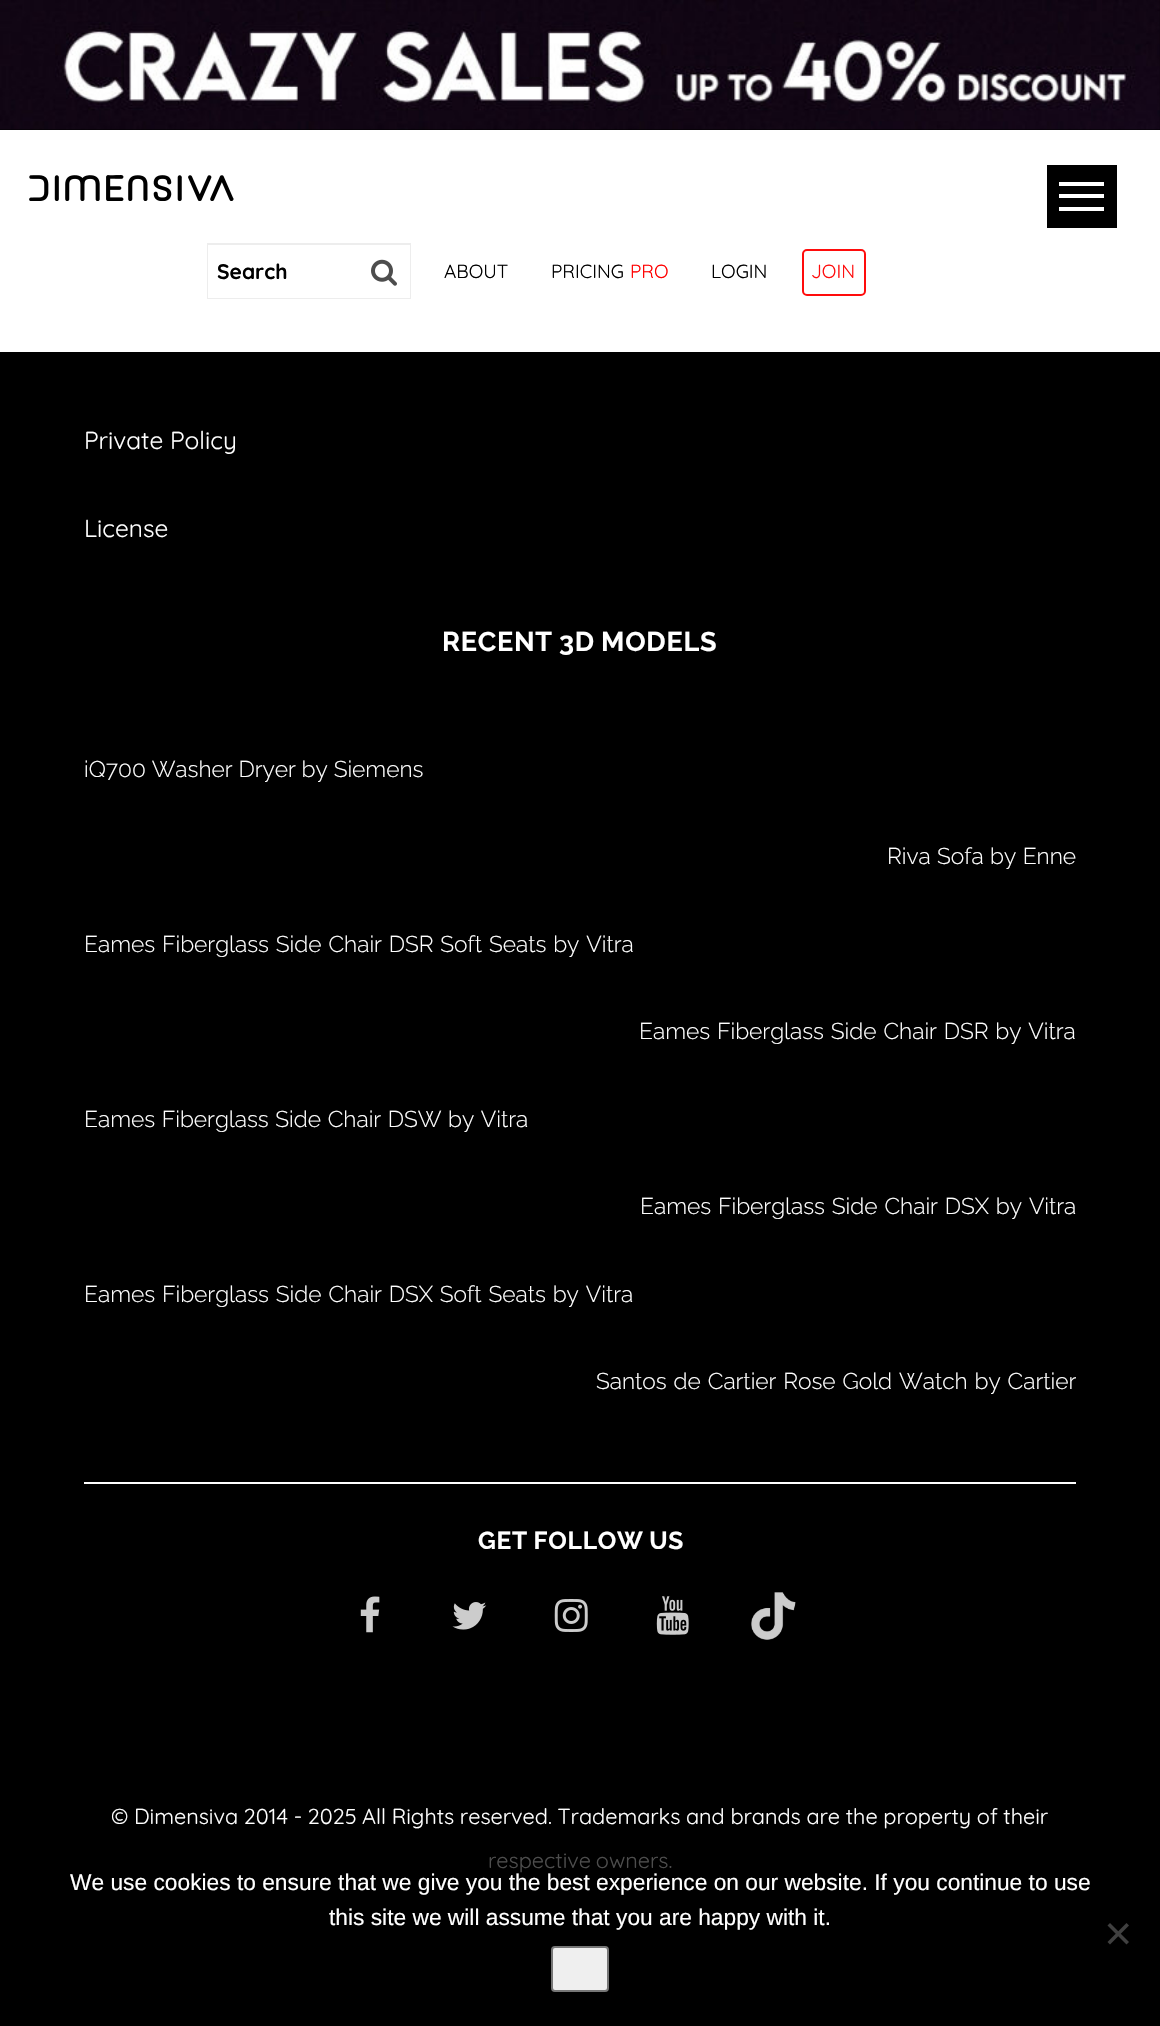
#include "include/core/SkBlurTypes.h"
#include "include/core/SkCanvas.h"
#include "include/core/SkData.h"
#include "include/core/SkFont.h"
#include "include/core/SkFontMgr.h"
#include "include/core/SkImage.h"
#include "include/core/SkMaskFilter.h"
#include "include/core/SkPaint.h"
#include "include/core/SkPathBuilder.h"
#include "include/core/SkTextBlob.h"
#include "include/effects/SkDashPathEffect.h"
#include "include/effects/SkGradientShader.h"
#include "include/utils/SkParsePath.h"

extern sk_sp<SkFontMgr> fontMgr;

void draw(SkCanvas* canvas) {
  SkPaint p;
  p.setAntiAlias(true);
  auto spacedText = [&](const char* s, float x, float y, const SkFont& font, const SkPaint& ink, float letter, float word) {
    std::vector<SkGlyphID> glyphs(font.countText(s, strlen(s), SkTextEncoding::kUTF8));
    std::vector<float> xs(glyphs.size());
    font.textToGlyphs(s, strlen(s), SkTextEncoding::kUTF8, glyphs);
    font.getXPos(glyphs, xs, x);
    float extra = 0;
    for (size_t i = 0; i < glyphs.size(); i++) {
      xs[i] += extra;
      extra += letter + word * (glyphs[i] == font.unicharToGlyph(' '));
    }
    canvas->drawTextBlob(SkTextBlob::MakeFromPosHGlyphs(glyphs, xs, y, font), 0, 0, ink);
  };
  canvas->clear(SK_ColorBLACK);
  p.setColor(SK_ColorWHITE);
  canvas->drawRect(SkRect::MakeLTRB(0, 130, 1160, 352), p);
  canvas->drawImageRect(SkImages::DeferredFromEncodedData(SkData::MakeFromFileName("images/1.png")), SkRect::MakeLTRB(0, 0, 1160, 130), SkSamplingOptions());
  p.setColor(SK_ColorBLACK);
  canvas->drawRect(SkRect::MakeLTRB(1047, 165, 1117, 228), p);
  p.setColor(SK_ColorWHITE);
  canvas->drawRect(SkRect::MakeLTRB(1059, 182, 1104, 186), p);
  canvas->drawRect(SkRect::MakeLTRB(1059, 194, 1104, 198), p);
  canvas->drawRect(SkRect::MakeLTRB(1059, 207, 1104, 211), p);
  canvas->drawImageRect(SkImages::DeferredFromEncodedData(SkData::MakeFromFileName("images/2.png")), SkRect::MakeLTRB(29, 175, 234, 201), SkSamplingOptions());
  p.setStyle(SkPaint::kStroke_Style);
  p.setStrokeWidth(2);
  p.setColor(SkColorSetRGB(237, 237, 237));
  canvas->drawRect(SkRect::MakeLTRB(208, 244, 410, 298), p);
  p.setStyle(SkPaint::kFill_Style);
  p.setColor(SK_ColorWHITE);
  canvas->drawRect(SkRect::MakeLTRB(208, 245, 410, 298), p);
  canvas->drawImageRect(SkImages::DeferredFromEncodedData(SkData::MakeFromFileName("images/3.png")), SkRect::MakeLTRB(371, 259, 397, 286), SkSamplingOptions());
  p.setStyle(SkPaint::kStroke_Style);
  p.setColor(SkColorSetRGB(255, 12, 12));
  canvas->drawRoundRect(SkRect::MakeLTRB(803, 250, 865, 295), 4, 4, p);
  p.setStyle(SkPaint::kFill_Style);
  p.setColor(SK_ColorWHITE);
  canvas->drawRect(SkRect::MakeLTRB(84, 1482, 1076, 1484), p);
  canvas->drawImageRect(SkImages::DeferredFromEncodedData(SkData::MakeFromFileName("images/4.png")), SkRect::MakeLTRB(360, 1596, 380, 1633), SkSamplingOptions());
  canvas->drawImageRect(SkImages::DeferredFromEncodedData(SkData::MakeFromFileName("images/5.png")), SkRect::MakeLTRB(452, 1602, 487, 1630), SkSamplingOptions());
  canvas->drawImageRect(SkImages::DeferredFromEncodedData(SkData::MakeFromFileName("images/6.png")), SkRect::MakeLTRB(554, 1599, 588, 1632), SkSamplingOptions());
  canvas->drawImageRect(SkImages::DeferredFromEncodedData(SkData::MakeFromFileName("images/7.png")), SkRect::MakeLTRB(656, 1596, 689, 1635), SkSamplingOptions());
  canvas->drawImageRect(SkImages::DeferredFromEncodedData(SkData::MakeFromFileName("images/8.png")), SkRect::MakeLTRB(751, 1592, 796, 1640), SkSamplingOptions());
  p.setColor(SkColorSetRGB(64, 64, 64));
  canvas->drawPath(SkPathBuilder().moveTo(1126.5f, 1923).lineTo(1129, 1925.5f).lineTo(1110, 1944.5f).lineTo(1107.5f, 1942).close().detach(), p);
  canvas->drawPath(SkPathBuilder().moveTo(1107.5f, 1925.5f).lineTo(1110, 1923).lineTo(1129, 1942).lineTo(1126.5f, 1944.5f).close().detach(), p);
  p.setColor(SkColorSetRGB(239, 239, 239));
  canvas->drawRoundRect(SkRect::MakeLTRB(552, 1947, 608, 1991), 3, 3, p);
  p.setStyle(SkPaint::kStroke_Style);
  p.setColor(SkColorSetRGB(118, 118, 118));
  canvas->drawRoundRect(SkRect::MakeLTRB(552, 1947, 608, 1991), 3, 3, p);
  SkFont font1(fontMgr->matchFamilyStyle("Quicksand", SkFontStyle::Bold()), 21);
  font1.setSubpixel(true);
  p.setStyle(SkPaint::kFill_Style);
  p.setColor(SK_ColorBLACK);
  canvas->drawString("Search", 217, 279, font1, p);
  SkFont font2(fontMgr->matchFamilyStyle("Quicksand", SkFontStyle::Normal()), 19);
  font2.setSubpixel(true);
  canvas->drawString("ABOUT", 444, 278, font2, p);
  canvas->drawString("PRICING", 551, 278, font2, p);
  p.setColor(SkColorSetRGB(255, 0, 0));
  canvas->drawString("PRO", 630, 278, font2, p);
  p.setColor(SK_ColorBLACK);
  canvas->drawString("LOGIN", 711, 278, font2, p);
  p.setColor(SkColorSetRGB(255, 12, 12));
  canvas->drawString("JOIN", 811, 278, font2, p);
  SkFont font3(fontMgr->matchFamilyStyle("Quicksand", SkFontStyle::Normal()), 24.5f);
  font3.setSubpixel(true);
  p.setColor(SK_ColorWHITE);
  canvas->drawString("Private Policy", 84, 449, font3, p);
  canvas->drawString("License", 84, 537, font3, p);
  SkFont font4(fontMgr->matchFamilyStyle("Raleway", SkFontStyle::Bold()), 27);
  font4.setSubpixel(true);
  spacedText("RECENT 3D MODELS", 442, 651, font4, p, 0.75f, -1);
  SkFont font5(fontMgr->matchFamilyStyle("Raleway", SkFontStyle(300, SkFontStyle::kNormal_Width, SkFontStyle::kUpright_Slant)), 22.75f);
  font5.setSubpixel(true);
  canvas->drawString("iQ700 Washer Dryer by Siemens", 84, 777, font5, p);
  spacedText("Riva Sofa by Enne", 887, 864, font5, p, 0, 0.5f);
  spacedText("Eames Fiberglass Side Chair DSR Soft Seats by Vitra", 84, 952, font5, p, 0, 1);
  spacedText("Eames Fiberglass Side Chair DSR by Vitra", 639, 1039, font5, p, 0, 1);
  spacedText("Eames Fiberglass Side Chair DSW by Vitra", 84, 1127, font5, p, 0, 0.75f);
  spacedText("Eames Fiberglass Side Chair DSX by Vitra", 640, 1214, font5, p, 0, 1);
  spacedText("Eames Fiberglass Side Chair DSX Soft Seats by Vitra", 84, 1302, font5, p, 0, 1);
  spacedText("Santos de Cartier Rose Gold Watch by Cartier", 596, 1389, font5, p, 0, 1);
  SkFont font6(fontMgr->matchFamilyStyle("Raleway", SkFontStyle::Bold()), 24.5f);
  font6.setSubpixel(true);
  spacedText("GET FOLLOW US", 478, 1549, font6, p, 0.75f, -1);
  SkFont font7(fontMgr->matchFamilyStyle("Quicksand", SkFontStyle::Normal()), 21.65f);
  font7.setSubpixel(true);
  canvas->drawString("©", 111, 1824, font7, p);
  spacedText("Dimensiva 2014 - 2025 All Rights reserved. Trademarks and brands are the property of their", 134, 1824, font7, p, 0, -0.25f);
  p.setColor(SkColorSetRGB(77, 77, 77));
  spacedText("respective owners.", 488, 1868, font7, p, 0, -1);
  SkFont font8(fontMgr->matchFamilyStyle("Liberation Sans", SkFontStyle::Normal()), 22.75f);
  font8.setSubpixel(true);
  p.setColor(SK_ColorWHITE);
  canvas->drawString("We use cookies to ensure that we give you the best experience on our website. If you continue to use", 70, 1890, font8, p);
  canvas->drawString("this site we will assume that you are happy with it.", 329, 1925, font8, p);
}
